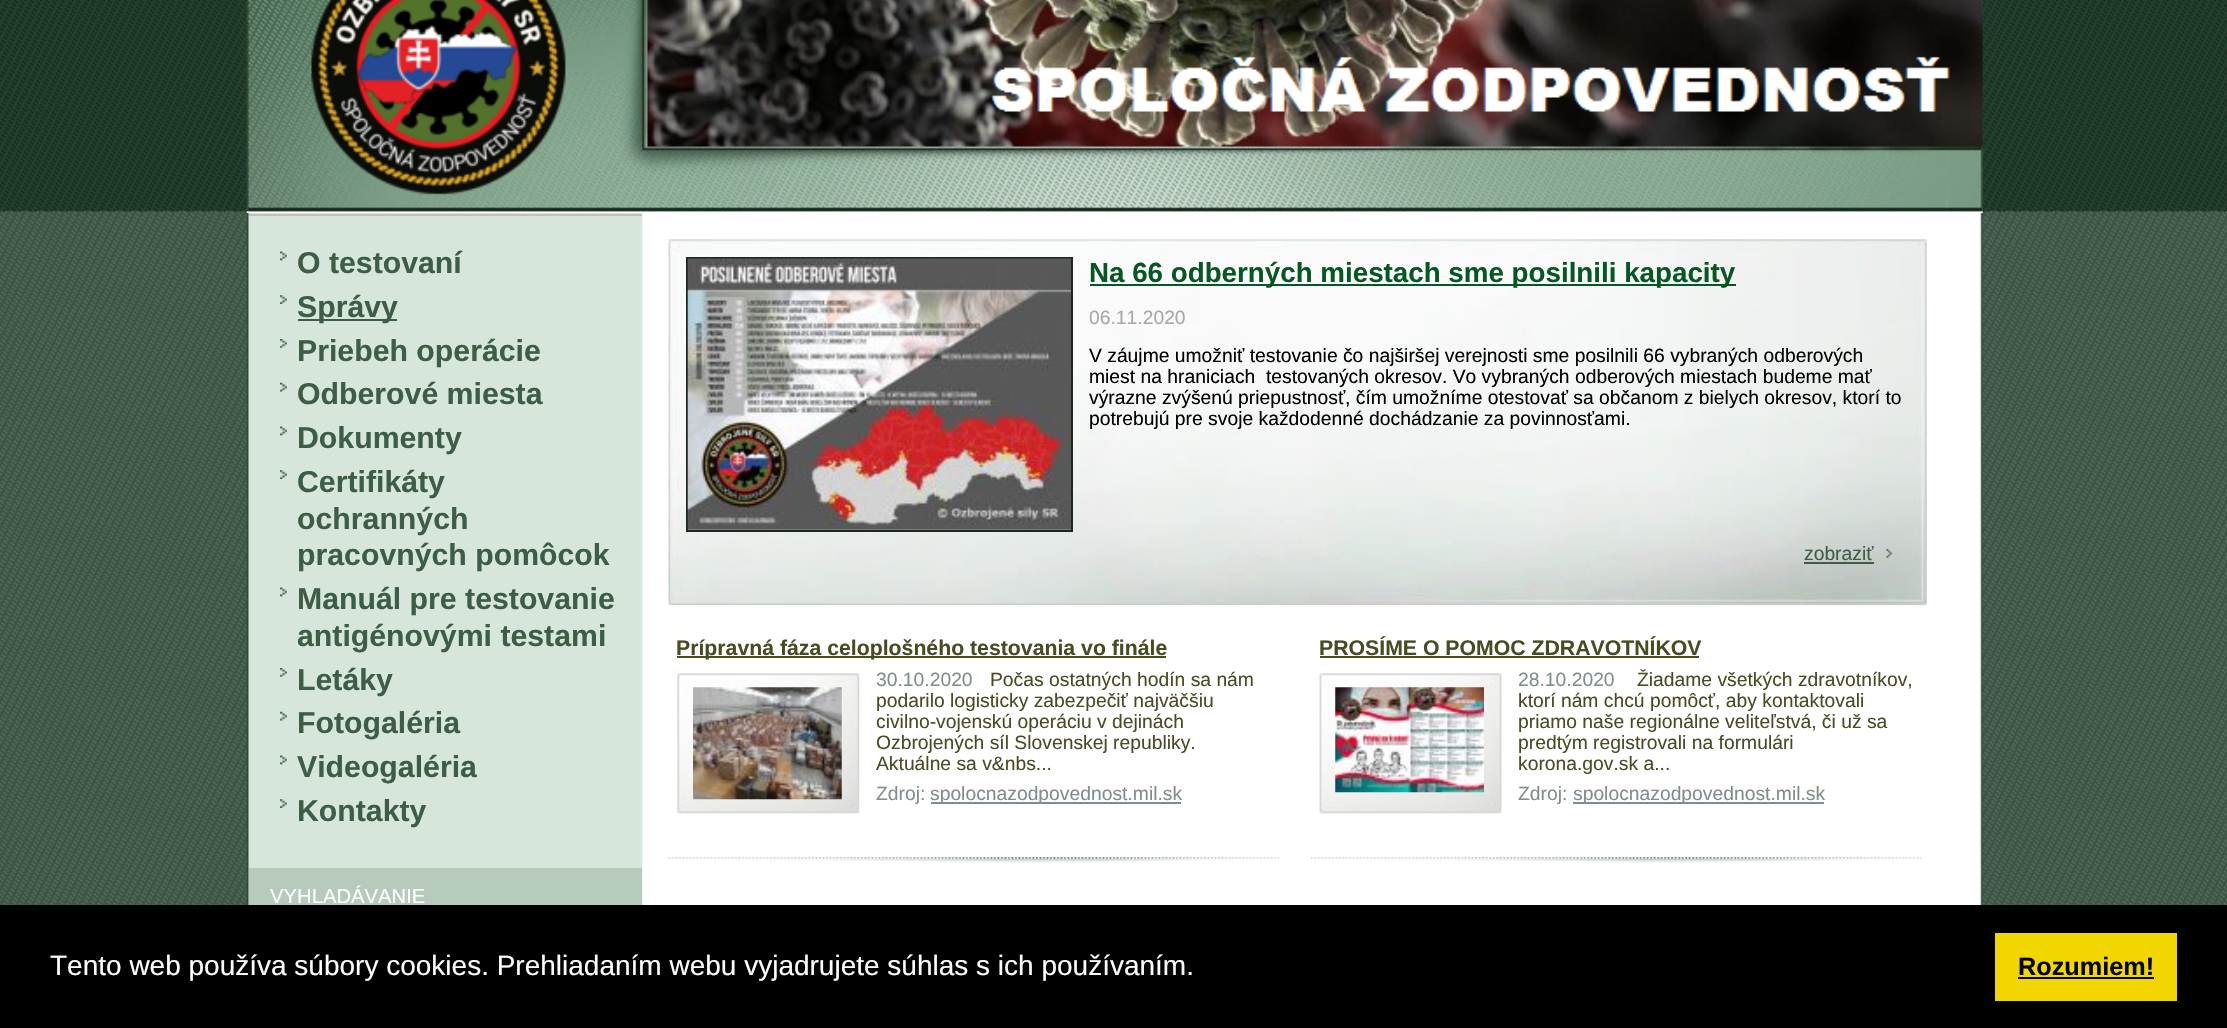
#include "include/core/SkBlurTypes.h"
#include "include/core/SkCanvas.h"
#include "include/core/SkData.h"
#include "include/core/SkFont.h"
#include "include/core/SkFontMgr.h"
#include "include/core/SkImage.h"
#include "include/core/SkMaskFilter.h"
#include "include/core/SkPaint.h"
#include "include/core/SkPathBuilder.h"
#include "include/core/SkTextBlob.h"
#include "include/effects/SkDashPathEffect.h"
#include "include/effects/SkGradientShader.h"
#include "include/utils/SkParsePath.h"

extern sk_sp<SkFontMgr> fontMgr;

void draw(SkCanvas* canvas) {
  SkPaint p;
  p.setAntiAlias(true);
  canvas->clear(SK_ColorWHITE);
  canvas->drawImageRect(SkImages::DeferredFromEncodedData(SkData::MakeFromFileName("images/1.png")), SkRect::MakeLTRB(0, 0, 2227, 905), SkSamplingOptions());
  canvas->drawImageRect(SkImages::DeferredFromEncodedData(SkData::MakeFromFileName("images/2.png")), SkRect::MakeLTRB(246, 0, 1983, 905), SkSamplingOptions());
  canvas->drawImageRect(SkImages::DeferredFromEncodedData(SkData::MakeFromFileName("images/3.png")), SkRect::MakeLTRB(246, 0, 1983, 213), SkSamplingOptions());
  p.setColor(SkColorSetRGB(192, 192, 192));
  canvas->drawRect(SkRect::MakeLTRB(249, 214, 642, 216), p);
  canvas->drawImageRect(SkImages::DeferredFromEncodedData(SkData::MakeFromFileName("images/4.png")), SkRect::MakeLTRB(280, 251, 287, 261), SkSamplingOptions());
  canvas->drawImageRect(SkImages::DeferredFromEncodedData(SkData::MakeFromFileName("images/5.png")), SkRect::MakeLTRB(280, 295, 287, 304), SkSamplingOptions());
  p.setColor(SkColorSetRGB(61, 93, 71));
  canvas->drawRect(SkRect::MakeLTRB(298, 319, 397, 321), p);
  canvas->drawImageRect(SkImages::DeferredFromEncodedData(SkData::MakeFromFileName("images/6.png")), SkRect::MakeLTRB(280, 339, 287, 348), SkSamplingOptions());
  canvas->drawImageRect(SkImages::DeferredFromEncodedData(SkData::MakeFromFileName("images/7.png")), SkRect::MakeLTRB(280, 382, 287, 392), SkSamplingOptions());
  canvas->drawImageRect(SkImages::DeferredFromEncodedData(SkData::MakeFromFileName("images/4.png")), SkRect::MakeLTRB(280, 426, 287, 436), SkSamplingOptions());
  canvas->drawImageRect(SkImages::DeferredFromEncodedData(SkData::MakeFromFileName("images/5.png")), SkRect::MakeLTRB(280, 470, 287, 479), SkSamplingOptions());
  canvas->drawImageRect(SkImages::DeferredFromEncodedData(SkData::MakeFromFileName("images/4.png")), SkRect::MakeLTRB(280, 587, 287, 597), SkSamplingOptions());
  canvas->drawImageRect(SkImages::DeferredFromEncodedData(SkData::MakeFromFileName("images/6.png")), SkRect::MakeLTRB(280, 668, 287, 677), SkSamplingOptions());
  canvas->drawImageRect(SkImages::DeferredFromEncodedData(SkData::MakeFromFileName("images/7.png")), SkRect::MakeLTRB(280, 711, 287, 721), SkSamplingOptions());
  canvas->drawImageRect(SkImages::DeferredFromEncodedData(SkData::MakeFromFileName("images/4.png")), SkRect::MakeLTRB(280, 755, 287, 765), SkSamplingOptions());
  canvas->drawImageRect(SkImages::DeferredFromEncodedData(SkData::MakeFromFileName("images/5.png")), SkRect::MakeLTRB(280, 799, 287, 808), SkSamplingOptions());
  p.setColor(SkColorSetRGB(183, 203, 189));
  canvas->drawRect(SkRect::MakeLTRB(249, 868, 642, 905), p);
  p.setColor(SkColorSetRGB(248, 250, 249));
  canvas->drawRect(SkRect::MakeLTRB(669, 240, 1927, 606), p);
  canvas->drawImageRect(SkImages::DeferredFromEncodedData(SkData::MakeFromFileName("images/8.png")), SkRect::MakeLTRB(668, 239, 1927, 605), SkSamplingOptions());
  p.setStyle(SkPaint::kStroke_Style);
  p.setStrokeWidth(2);
  p.setColor(SkColorSetRGB(27, 40, 31));
  canvas->drawRect(SkRect::MakeLTRB(687, 258, 1072, 531), p);
  canvas->drawImageRect(SkImages::DeferredFromEncodedData(SkData::MakeFromFileName("images/9.png")), SkRect::MakeLTRB(687, 258, 1071, 530), SkSamplingOptions());
  p.setStyle(SkPaint::kFill_Style);
  p.setColor(SkColorSetRGB(7, 87, 36));
  canvas->drawRect(SkRect::MakeLTRB(1090, 284, 1736, 286), p);
  p.setColor(SkColorSetRGB(61, 93, 71));
  canvas->drawRect(SkRect::MakeLTRB(1804, 562, 1874, 564), p);
  canvas->drawImageRect(SkImages::DeferredFromEncodedData(SkData::MakeFromFileName("images/10.png")), SkRect::MakeLTRB(1886, 549, 1892, 558), SkSamplingOptions());
  canvas->drawImageRect(SkImages::DeferredFromEncodedData(SkData::MakeFromFileName("images/11.png")), SkRect::MakeLTRB(668, 857, 1280, 863), SkSamplingOptions());
  p.setColor(SkColorSetRGB(70, 77, 35));
  canvas->drawRect(SkRect::MakeLTRB(677, 656, 1166, 658), p);
  canvas->drawImageRect(SkImages::DeferredFromEncodedData(SkData::MakeFromFileName("images/12.png")), SkRect::MakeLTRB(677, 673, 860, 814), SkSamplingOptions());
  canvas->drawImageRect(SkImages::DeferredFromEncodedData(SkData::MakeFromFileName("images/13.png")), SkRect::MakeLTRB(693, 687, 842, 800), SkSamplingOptions());
  p.setColor(SkColorSetRGB(128, 143, 133));
  canvas->drawRect(SkRect::MakeLTRB(931, 802, 1181, 804), p);
  canvas->drawImageRect(SkImages::DeferredFromEncodedData(SkData::MakeFromFileName("images/14.png")), SkRect::MakeLTRB(1310, 857, 1922, 863), SkSamplingOptions());
  p.setColor(SkColorSetRGB(70, 77, 35));
  canvas->drawRect(SkRect::MakeLTRB(1320, 656, 1699, 658), p);
  canvas->drawImageRect(SkImages::DeferredFromEncodedData(SkData::MakeFromFileName("images/15.png")), SkRect::MakeLTRB(1319, 673, 1502, 814), SkSamplingOptions());
  canvas->drawImageRect(SkImages::DeferredFromEncodedData(SkData::MakeFromFileName("images/16.png")), SkRect::MakeLTRB(1335, 687, 1484, 793), SkSamplingOptions());
  p.setColor(SkColorSetRGB(128, 143, 133));
  canvas->drawRect(SkRect::MakeLTRB(1573, 802, 1824, 804), p);
  p.setColor(SK_ColorBLACK);
  canvas->drawRect(SkRect::MakeLTRB(0, 905, 2227, 1028), p);
  p.setColor(SkColorSetRGB(241, 214, 0));
  canvas->drawRect(SkRect::MakeLTRB(1995, 933, 2177, 1001), p);
  p.setColor(SK_ColorBLACK);
  canvas->drawRect(SkRect::MakeLTRB(2018, 977, 2154, 979), p);
  SkFont font1(fontMgr->matchFamilyStyle("Liberation Sans", SkFontStyle::Bold()), 30.25f);
  font1.setSubpixel(true);
  p.setColor(SkColorSetRGB(61, 93, 71));
  canvas->drawString("O testovaní", 297, 273, font1, p);
  canvas->drawString("Správy", 297, 317, font1, p);
  canvas->drawString("Priebeh operácie", 297, 361, font1, p);
  canvas->drawString("Odberové miesta", 297, 404, font1, p);
  canvas->drawString("Dokumenty", 297, 448, font1, p);
  canvas->drawString("Certifikáty", 297, 492, font1, p);
  canvas->drawString("ochranných", 297, 529, font1, p);
  canvas->drawString("pracovných pomôcok", 297, 565, font1, p);
  canvas->drawString("Manuál pre testovanie", 297, 609, font1, p);
  canvas->drawString("antigénovými testami", 297, 646, font1, p);
  canvas->drawString("Letáky", 297, 690, font1, p);
  canvas->drawString("Fotogaléria", 297, 733, font1, p);
  canvas->drawString("Videogaléria", 297, 777, font1, p);
  canvas->drawString("Kontakty", 297, 821, font1, p);
  SkFont font2(fontMgr->matchFamilyStyle("Liberation Sans", SkFontStyle::Normal()), 20.25f);
  font2.setSubpixel(true);
  p.setColor(SK_ColorWHITE);
  canvas->drawString("VYHLADÁVANIE", 270, 903, font2, p);
  SkFont font3(fontMgr->matchFamilyStyle("Liberation Sans", SkFontStyle::Bold()), 27.75f);
  font3.setSubpixel(true);
  p.setColor(SkColorSetRGB(7, 87, 36));
  canvas->drawString("Na 66 odberných miestach sme posilnili kapacity", 1089, 282, font3, p);
  SkFont font4(fontMgr->matchFamilyStyle("Liberation Sans", SkFontStyle::Normal()), 19.3f);
  font4.setSubpixel(true);
  p.setColor(SkColorSetRGB(168, 168, 168));
  canvas->drawString("06.11.2020", 1089, 324, font4, p);
  p.setColor(SK_ColorBLACK);
  canvas->drawString("V záujme umožniť testovanie čo najširšej verejnosti sme posilnili 66 vybraných odberových", 1089, 362, font4, p);
  canvas->drawString("miest na hraniciach  testovaných okresov. Vo vybraných odberových miestach budeme mať", 1089, 383, font4, p);
  canvas->drawString("výrazne zvýšenú priepustnosť, čím umožníme otestovať sa občanom z bielych okresov, ktorí to", 1089, 404, font4, p);
  canvas->drawString("potrebujú pre svoje každodenné dochádzanie za povinnosťami.", 1089, 425, font4, p);
  p.setColor(SkColorSetRGB(61, 93, 71));
  canvas->drawString("zobraziť", 1804, 560, font4, p);
  SkFont font5(fontMgr->matchFamilyStyle("Liberation Sans", SkFontStyle::Bold()), 21.25f);
  font5.setSubpixel(true);
  p.setColor(SkColorSetRGB(70, 77, 35));
  canvas->drawString("Prípravná fáza celoplošného testovania vo finále", 676, 655, font5, p);
  p.setColor(SkColorSetRGB(128, 143, 133));
  canvas->drawString("30.10.2020", 876, 686, font4, p);
  p.setColor(SkColorSetRGB(70, 77, 35));
  canvas->drawString("Počas ostatných hodín sa nám", 990, 686, font4, p);
  canvas->drawString("podarilo logisticky zabezpečiť najväčšiu", 876, 707, font4, p);
  canvas->drawString("civilno-vojenskú operáciu v dejinách", 876, 728, font4, p);
  canvas->drawString("Ozbrojených síl Slovenskej republiky.", 876, 749, font4, p);
  canvas->drawString("Aktuálne sa v&nbs...", 876, 770, font4, p);
  p.setColor(SkColorSetRGB(128, 143, 133));
  canvas->drawString("Zdroj:", 876, 800, font4, p);
  canvas->drawString("spolocnazodpovednost.mil.sk", 930, 800, font4, p);
  p.setColor(SkColorSetRGB(70, 77, 35));
  canvas->drawString("PROSÍME O POMOC ZDRAVOTNÍKOV", 1319, 655, font5, p);
  p.setColor(SkColorSetRGB(128, 143, 133));
  canvas->drawString("28.10.2020", 1518, 686, font4, p);
  p.setColor(SkColorSetRGB(70, 77, 35));
  canvas->drawString("Žiadame všetkých zdravotníkov,", 1637, 686, font4, p);
  canvas->drawString("ktorí nám chcú pomôcť, aby kontaktovali", 1518, 707, font4, p);
  canvas->drawString("priamo naše regionálne veliteľstvá, či už sa", 1518, 728, font4, p);
  canvas->drawString("predtým registrovali na formulári", 1518, 749, font4, p);
  canvas->drawString("korona.gov.sk a...", 1518, 770, font4, p);
  p.setColor(SkColorSetRGB(128, 143, 133));
  canvas->drawString("Zdroj:", 1518, 800, font4, p);
  canvas->drawString("spolocnazodpovednost.mil.sk", 1573, 800, font4, p);
  SkFont font6(fontMgr->matchFamilyStyle("Liberation Sans", SkFontStyle::Normal()), 28);
  font6.setSubpixel(true);
  p.setColor(SK_ColorWHITE);
  canvas->drawString("Tento web používa súbory cookies. Prehliadaním webu vyjadrujete súhlas s ich používaním.", 50, 975, font6, p);
  SkFont font7(fontMgr->matchFamilyStyle("Liberation Sans", SkFontStyle::Bold()), 25.25f);
  font7.setSubpixel(true);
  p.setColor(SK_ColorBLACK);
  canvas->drawString("Rozumiem!", 2018, 975, font7, p);
}
